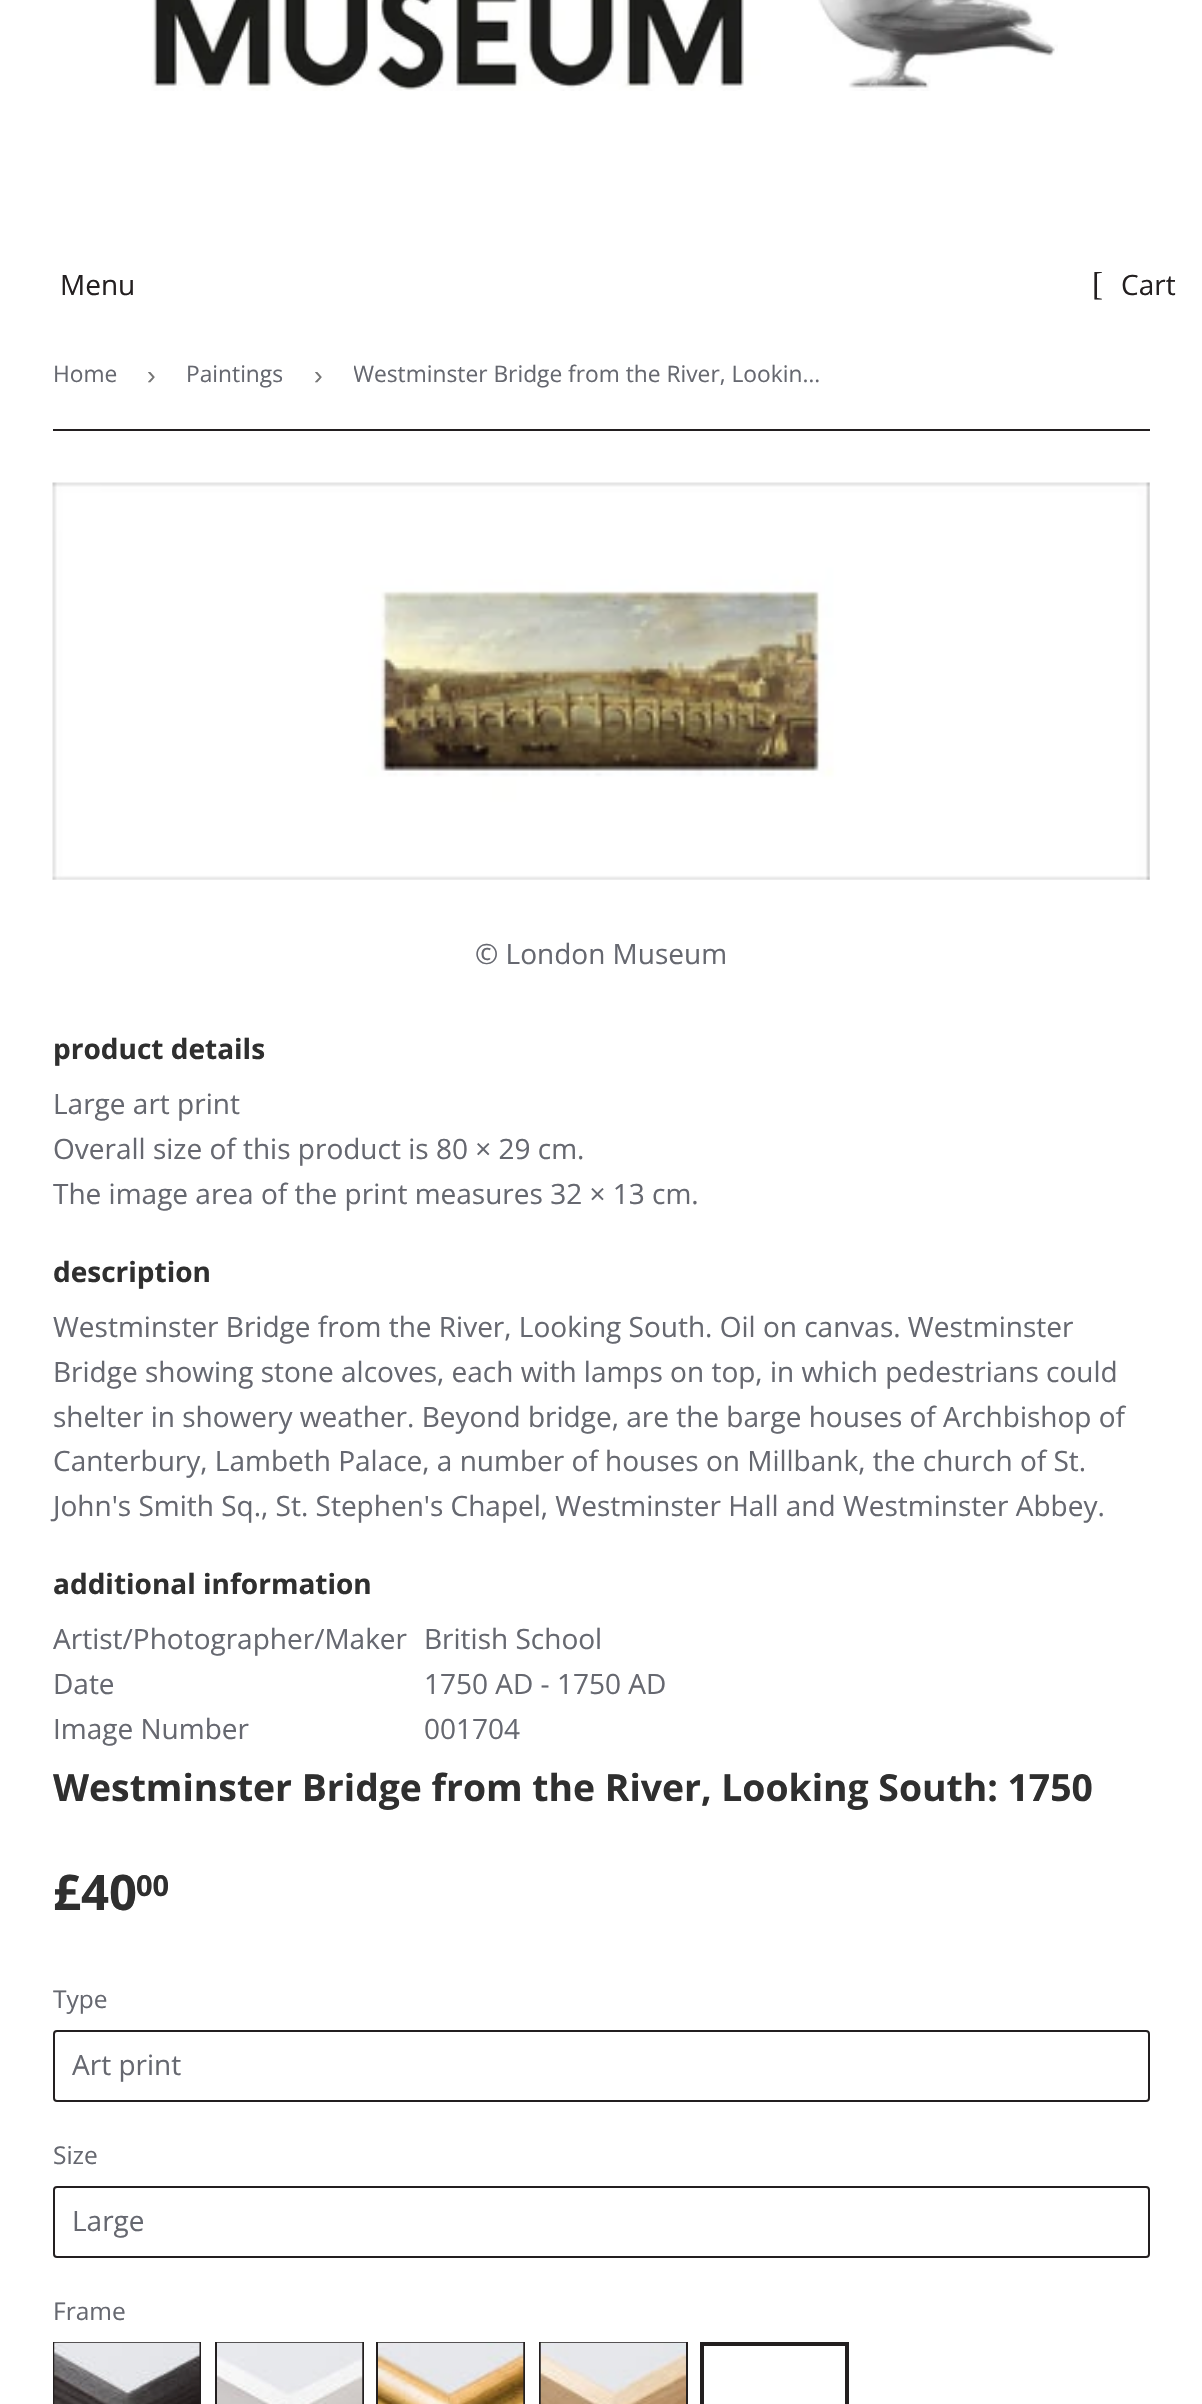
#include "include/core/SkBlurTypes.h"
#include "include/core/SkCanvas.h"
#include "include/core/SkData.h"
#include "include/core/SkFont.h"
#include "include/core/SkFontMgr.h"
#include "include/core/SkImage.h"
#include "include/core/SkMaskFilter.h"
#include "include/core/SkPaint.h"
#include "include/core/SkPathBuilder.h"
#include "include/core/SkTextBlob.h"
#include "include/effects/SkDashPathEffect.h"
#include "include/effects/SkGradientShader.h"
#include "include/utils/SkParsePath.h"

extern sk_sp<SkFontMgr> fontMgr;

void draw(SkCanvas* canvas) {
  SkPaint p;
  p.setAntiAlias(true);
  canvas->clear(SK_ColorWHITE);
  canvas->drawImageRect(SkImages::DeferredFromEncodedData(SkData::MakeFromFileName("images/1.png")), SkRect::MakeLTRB(151, 0, 1058, 91), SkSamplingOptions());
  p.setColor(SkColorSetRGB(35, 31, 32));
  canvas->drawRect(SkRect::MakeLTRB(53, 429, 1150, 431), p);
  canvas->drawImageRect(SkImages::DeferredFromEncodedData(SkData::MakeFromFileName("images/2.png")), SkRect::MakeLTRB(52, 482, 1150, 880), SkSamplingOptions());
  p.setStyle(SkPaint::kStroke_Style);
  p.setStrokeWidth(2);
  canvas->drawRoundRect(SkRect::MakeLTRB(54, 2031, 1149, 2101), 3, 3, p);
  canvas->drawRoundRect(SkRect::MakeLTRB(54, 2187, 1149, 2257), 3, 3, p);
  canvas->drawRect(SkRect::MakeLTRB(54, 2343, 200, 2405), p);
  canvas->drawImageRect(SkImages::DeferredFromEncodedData(SkData::MakeFromFileName("images/3.png")), SkRect::MakeLTRB(54, 2342, 200, 2404), SkSamplingOptions());
  canvas->drawRect(SkRect::MakeLTRB(216, 2343, 363, 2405), p);
  canvas->drawImageRect(SkImages::DeferredFromEncodedData(SkData::MakeFromFileName("images/4.png")), SkRect::MakeLTRB(217, 2342, 363, 2404), SkSamplingOptions());
  canvas->drawRect(SkRect::MakeLTRB(377, 2343, 524, 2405), p);
  canvas->drawImageRect(SkImages::DeferredFromEncodedData(SkData::MakeFromFileName("images/5.png")), SkRect::MakeLTRB(378, 2342, 524, 2404), SkSamplingOptions());
  canvas->drawRect(SkRect::MakeLTRB(540, 2343, 687, 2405), p);
  canvas->drawImageRect(SkImages::DeferredFromEncodedData(SkData::MakeFromFileName("images/6.png")), SkRect::MakeLTRB(540, 2342, 686, 2404), SkSamplingOptions());
  p.setStrokeWidth(4);
  canvas->drawRect(SkRect::MakeLTRB(702, 2344, 847, 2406), p);
  SkFont font1(fontMgr->matchFamilyStyle("Open Sans", SkFontStyle::Normal()), 28);
  font1.setSubpixel(true);
  p.setStyle(SkPaint::kFill_Style);
  canvas->drawString("Menu", 60, 295, font1, p);
  SkFont font2(fontMgr->matchFamilyStyle("Liberation Serif", SkFontStyle::Normal()), 33);
  font2.setSubpixel(true);
  canvas->drawString("[", 1092, 295, font2, p);
  canvas->drawString("Cart", 1121, 295, font1, p);
  SkFont font3(fontMgr->matchFamilyStyle("Open Sans", SkFontStyle::Normal()), 22.75f);
  font3.setSubpixel(true);
  p.setColor(SkColorSetRGB(102, 104, 112));
  canvas->drawString("Home", 53, 382, font3, p);
  SkFont font4(fontMgr->matchFamilyStyle("Liberation Sans", SkFontStyle::Normal()), 26);
  font4.setSubpixel(true);
  p.setColor(SkColorSetRGB(118, 118, 118));
  canvas->drawString("›", 147, 384, font4, p);
  p.setColor(SkColorSetRGB(102, 104, 112));
  canvas->drawString("Paintings", 186, 382, font3, p);
  p.setColor(SkColorSetRGB(118, 118, 118));
  canvas->drawString("›", 314, 384, font4, p);
  canvas->save();
  canvas->clipRect(SkRect::MakeLTRB(354, 331, 844, 418));
  p.setColor(SkColorSetRGB(102, 104, 112));
  canvas->drawString("Westminster Bridge from the River, Lookin…", 353, 382, font3, p);
  canvas->restore();
  canvas->drawString("© London Museum", 475, 964, font1, p);
  SkFont font5(fontMgr->matchFamilyStyle("Open Sans", SkFontStyle::Bold()), 28);
  font5.setSubpixel(true);
  p.setColor(SkColorSetRGB(47, 47, 47));
  canvas->drawString("product details", 53, 1059, font5, p);
  p.setColor(SkColorSetRGB(102, 104, 112));
  canvas->drawString("Large art print", 53, 1114, font1, p);
  canvas->drawString("Overall size of this product is 80 × 29 cm.", 53, 1159, font1, p);
  canvas->drawString("The image area of the print measures 32 × 13 cm.", 53, 1204, font1, p);
  p.setColor(SkColorSetRGB(47, 47, 47));
  canvas->drawString("description", 53, 1282, font5, p);
  p.setColor(SkColorSetRGB(102, 104, 112));
  canvas->drawString("Westminster Bridge from the River, Looking South. Oil on canvas. Westminster", 53, 1337, font1, p);
  canvas->drawString("Bridge showing stone alcoves, each with lamps on top, in which pedestrians could", 53, 1382, font1, p);
  canvas->drawString("shelter in showery weather. Beyond bridge, are the barge houses of Archbishop of", 53, 1427, font1, p);
  canvas->drawString("Canterbury, Lambeth Palace, a number of houses on Millbank, the church of St.", 53, 1471, font1, p);
  canvas->drawString("John's Smith Sq., St. Stephen's Chapel, Westminster Hall and Westminster Abbey.", 53, 1516, font1, p);
  p.setColor(SkColorSetRGB(47, 47, 47));
  canvas->drawString("additional information", 53, 1594, font5, p);
  p.setColor(SkColorSetRGB(102, 104, 112));
  canvas->drawString("Artist/Photographer/Maker", 53, 1649, font1, p);
  canvas->drawString("British School", 424, 1649, font1, p);
  canvas->drawString("Date", 53, 1694, font1, p);
  canvas->drawString("1750 AD - 1750 AD", 424, 1694, font1, p);
  canvas->drawString("Image Number", 53, 1739, font1, p);
  canvas->drawString("001704", 424, 1739, font1, p);
  SkFont font6(fontMgr->matchFamilyStyle("Open Sans", SkFontStyle::Bold()), 37.3f);
  font6.setSubpixel(true);
  p.setColor(SkColorSetRGB(47, 47, 47));
  canvas->drawString("Westminster Bridge from the River, Looking South: 1750", 53, 1801, font6, p);
  SkFont font7(fontMgr->matchFamilyStyle("Open Sans", SkFontStyle::Bold()), 49);
  font7.setSubpixel(true);
  canvas->drawString("£40", 53, 1910, font7, p);
  SkFont font8(fontMgr->matchFamilyStyle("Open Sans", SkFontStyle::Bold()), 29);
  font8.setSubpixel(true);
  canvas->drawString("00", 136, 1896, font8, p);
  SkFont font9(fontMgr->matchFamilyStyle("Open Sans", SkFontStyle::Normal()), 24.5f);
  font9.setSubpixel(true);
  p.setColor(SkColorSetRGB(102, 104, 112));
  canvas->drawString("Type", 53, 2008, font9, p);
  canvas->drawString("Art print", 72, 2075, font1, p);
  canvas->drawString("Size", 53, 2164, font9, p);
  canvas->drawString("Large", 72, 2231, font1, p);
  canvas->drawString("Frame", 53, 2320, font9, p);
}
